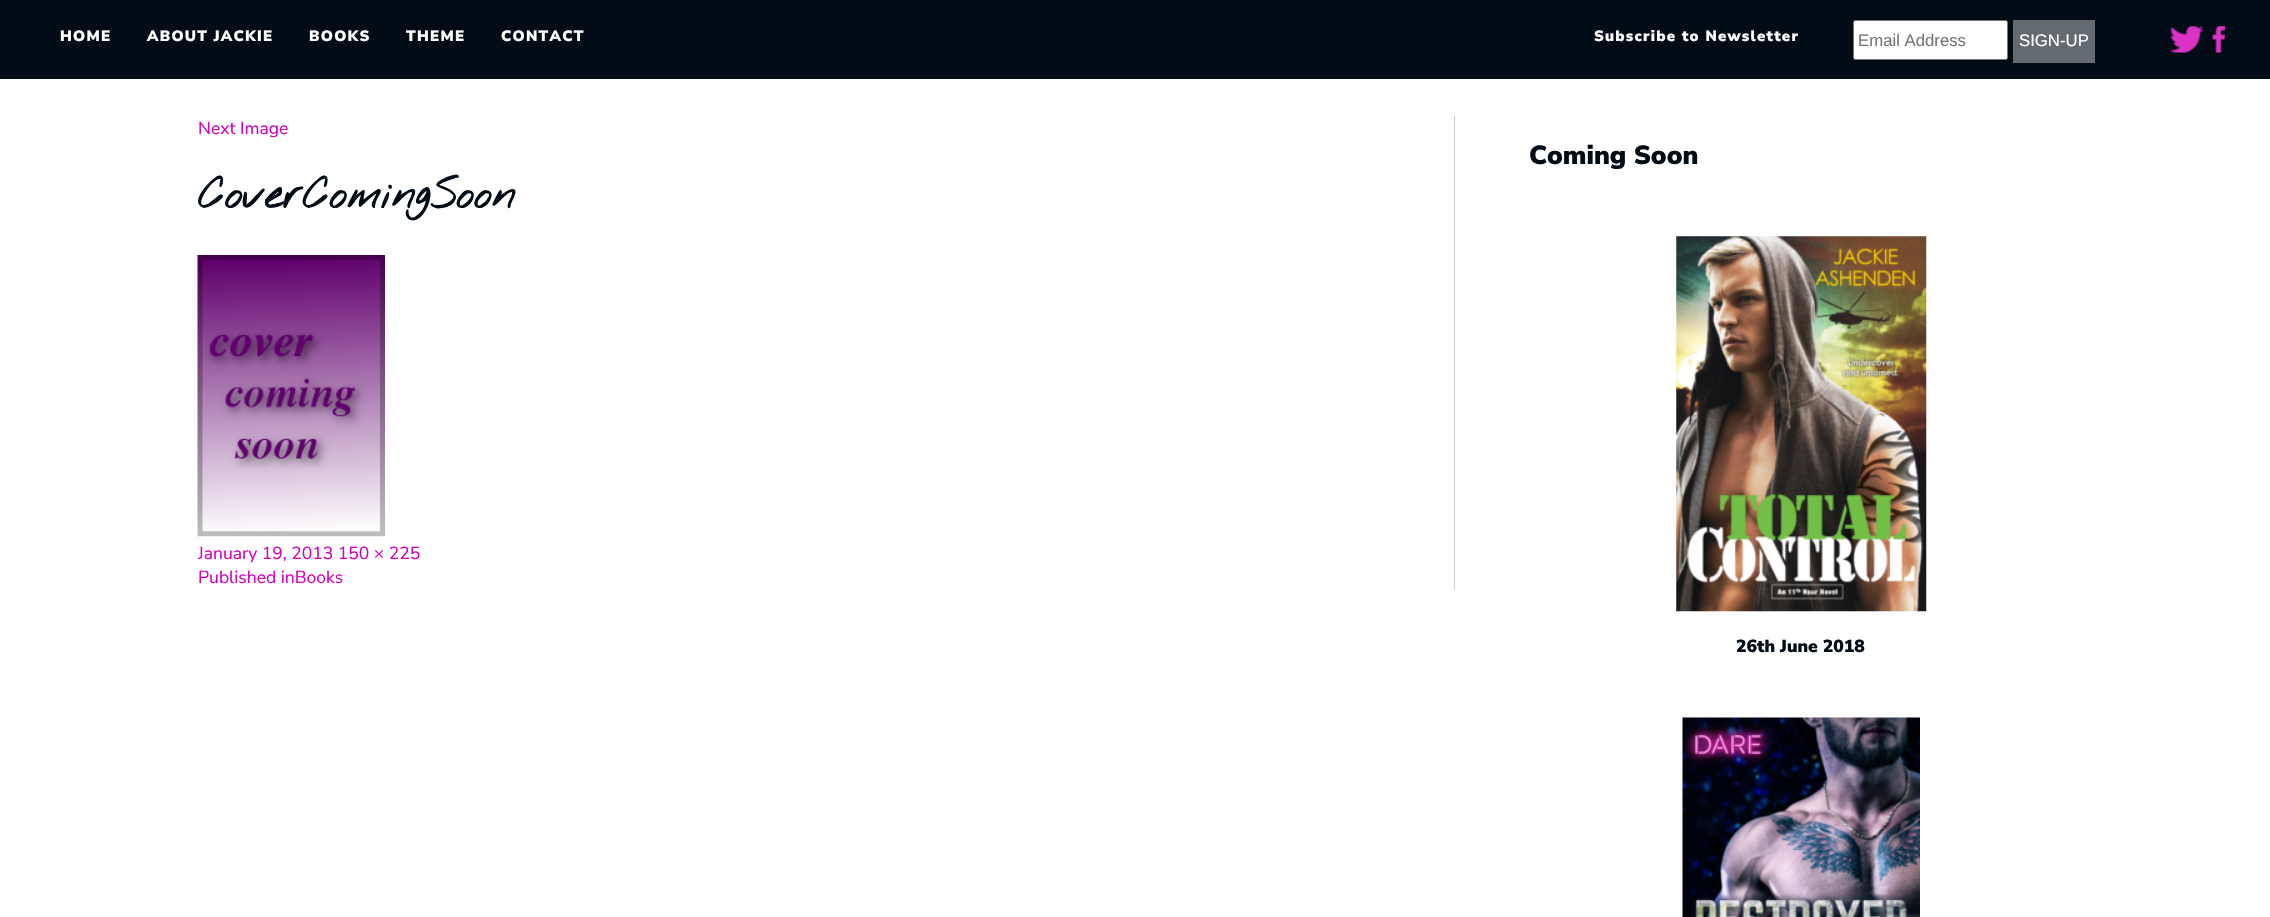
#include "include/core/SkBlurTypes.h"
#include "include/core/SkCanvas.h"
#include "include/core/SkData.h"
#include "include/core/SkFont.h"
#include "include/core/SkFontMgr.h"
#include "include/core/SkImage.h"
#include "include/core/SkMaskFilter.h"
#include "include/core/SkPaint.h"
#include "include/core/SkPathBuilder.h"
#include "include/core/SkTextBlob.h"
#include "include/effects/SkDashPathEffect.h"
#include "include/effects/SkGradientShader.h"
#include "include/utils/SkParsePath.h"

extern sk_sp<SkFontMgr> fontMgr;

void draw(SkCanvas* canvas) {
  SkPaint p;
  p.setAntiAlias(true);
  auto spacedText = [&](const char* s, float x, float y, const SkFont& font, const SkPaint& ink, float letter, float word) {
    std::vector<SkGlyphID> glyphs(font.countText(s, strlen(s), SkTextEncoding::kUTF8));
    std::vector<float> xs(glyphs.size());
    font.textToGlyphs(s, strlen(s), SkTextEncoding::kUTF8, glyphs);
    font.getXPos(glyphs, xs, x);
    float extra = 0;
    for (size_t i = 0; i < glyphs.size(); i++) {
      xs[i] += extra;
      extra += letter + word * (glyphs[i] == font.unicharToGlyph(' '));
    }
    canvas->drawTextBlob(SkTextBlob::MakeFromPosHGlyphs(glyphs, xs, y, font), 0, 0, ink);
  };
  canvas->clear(SK_ColorWHITE);
  p.setColor(SkColorSetRGB(1, 12, 23));
  canvas->drawRect(SkRect::MakeLTRB(0, 0, 2270, 79), p);
  p.setColor(SK_ColorWHITE);
  canvas->drawRoundRect(SkRect::MakeLTRB(1853.5f, 20.5f, 2007.5f, 59.5f), 2, 2, p);
  p.setStyle(SkPaint::kStroke_Style);
  p.setStrokeWidth(1);
  p.setColor(SkColorSetRGB(118, 118, 118));
  canvas->drawRoundRect(SkRect::MakeLTRB(1853.5f, 20.5f, 2007.5f, 59.5f), 2, 2, p);
  p.setStyle(SkPaint::kFill_Style);
  p.setColor(SkColorSetRGB(100, 107, 112));
  canvas->drawRect(SkRect::MakeLTRB(2013, 20, 2095, 63), p);
  canvas->drawImageRect(SkImages::DeferredFromEncodedData(SkData::MakeFromFileName("images/1.png")), SkRect::MakeLTRB(2170, 26, 2204, 53), SkSamplingOptions());
  canvas->drawImageRect(SkImages::DeferredFromEncodedData(SkData::MakeFromFileName("images/2.png")), SkRect::MakeLTRB(2212, 26, 2225, 53), SkSamplingOptions());
  p.setColor(SkColorSetRGB(204, 204, 204));
  canvas->drawRect(SkRect::MakeLTRB(1454, 116, 1455, 590), p);
  canvas->drawImageRect(SkImages::DeferredFromEncodedData(SkData::MakeFromFileName("images/3.png")), SkRect::MakeLTRB(197, 255, 385, 537), SkSamplingOptions());
  canvas->drawImageRect(SkImages::DeferredFromEncodedData(SkData::MakeFromFileName("images/4.png")), SkRect::MakeLTRB(1676, 236, 1927, 612), SkSamplingOptions());
  canvas->drawImageRect(SkImages::DeferredFromEncodedData(SkData::MakeFromFileName("images/5.png")), SkRect::MakeLTRB(1682, 717, 1920, 917), SkSamplingOptions());
  SkFont font1(fontMgr->matchFamilyStyle("Nunito Sans", SkFontStyle(900, SkFontStyle::kNormal_Width, SkFontStyle::kUpright_Slant)), 15);
  font1.setSubpixel(true);
  p.setColor(SK_ColorWHITE);
  spacedText("HOME", 60, 41, font1, p, 1.25f, 0);
  spacedText("ABOUT JACKIE", 147, 41, font1, p, 1.25f, 0);
  spacedText("BOOKS", 309, 41, font1, p, 1.25f, 0);
  spacedText("THEME", 406, 41, font1, p, 1.25f, 0);
  spacedText("CONTACT", 501, 41, font1, p, 1.25f, 0);
  spacedText("Subscribe to Newsletter", 1594, 41, font1, p, 1.25f, 0);
  SkFont font2(fontMgr->matchFamilyStyle("Liberation Sans", SkFontStyle::Normal()), 16.75f);
  font2.setSubpixel(true);
  p.setColor(SkColorSetRGB(117, 117, 117));
  canvas->drawString("Email Address", 1858, 46, font2, p);
  p.setColor(SK_ColorWHITE);
  canvas->drawString("SIGN-UP", 2019, 46, font2, p);
  SkFont font3(fontMgr->matchFamilyStyle("Nunito Sans", SkFontStyle::Normal()), 17.5f);
  font3.setSubpixel(true);
  p.setColor(SkColorSetRGB(211, 1, 184));
  canvas->drawString("Next Image", 198, 134, font3, p);
  SkFont font4(fontMgr->matchFamilyStyle("Nothing You Could Do", SkFontStyle::Bold()), 42.5f);
  font4.setSubpixel(true);
  p.setColor(SkColorSetRGB(1, 12, 23));
  canvas->drawString("CoverComingSoon", 198, 208, font4, p);
  p.setColor(SkColorSetRGB(211, 1, 184));
  canvas->drawString("January 19, 2013 150 × 225", 198, 559, font3, p);
  canvas->drawString("Published inBooks", 198, 583, font3, p);
  SkFont font5(fontMgr->matchFamilyStyle("Nunito Sans", SkFontStyle(900, SkFontStyle::kNormal_Width, SkFontStyle::kUpright_Slant)), 26.25f);
  font5.setSubpixel(true);
  p.setColor(SkColorSetRGB(1, 12, 23));
  canvas->drawString("Coming Soon", 1529, 164, font5, p);
  SkFont font6(fontMgr->matchFamilyStyle("Nunito Sans", SkFontStyle(900, SkFontStyle::kNormal_Width, SkFontStyle::kUpright_Slant)), 17.5f);
  font6.setSubpixel(true);
  canvas->drawString("26th June 2018", 1736, 652, font6, p);
}
